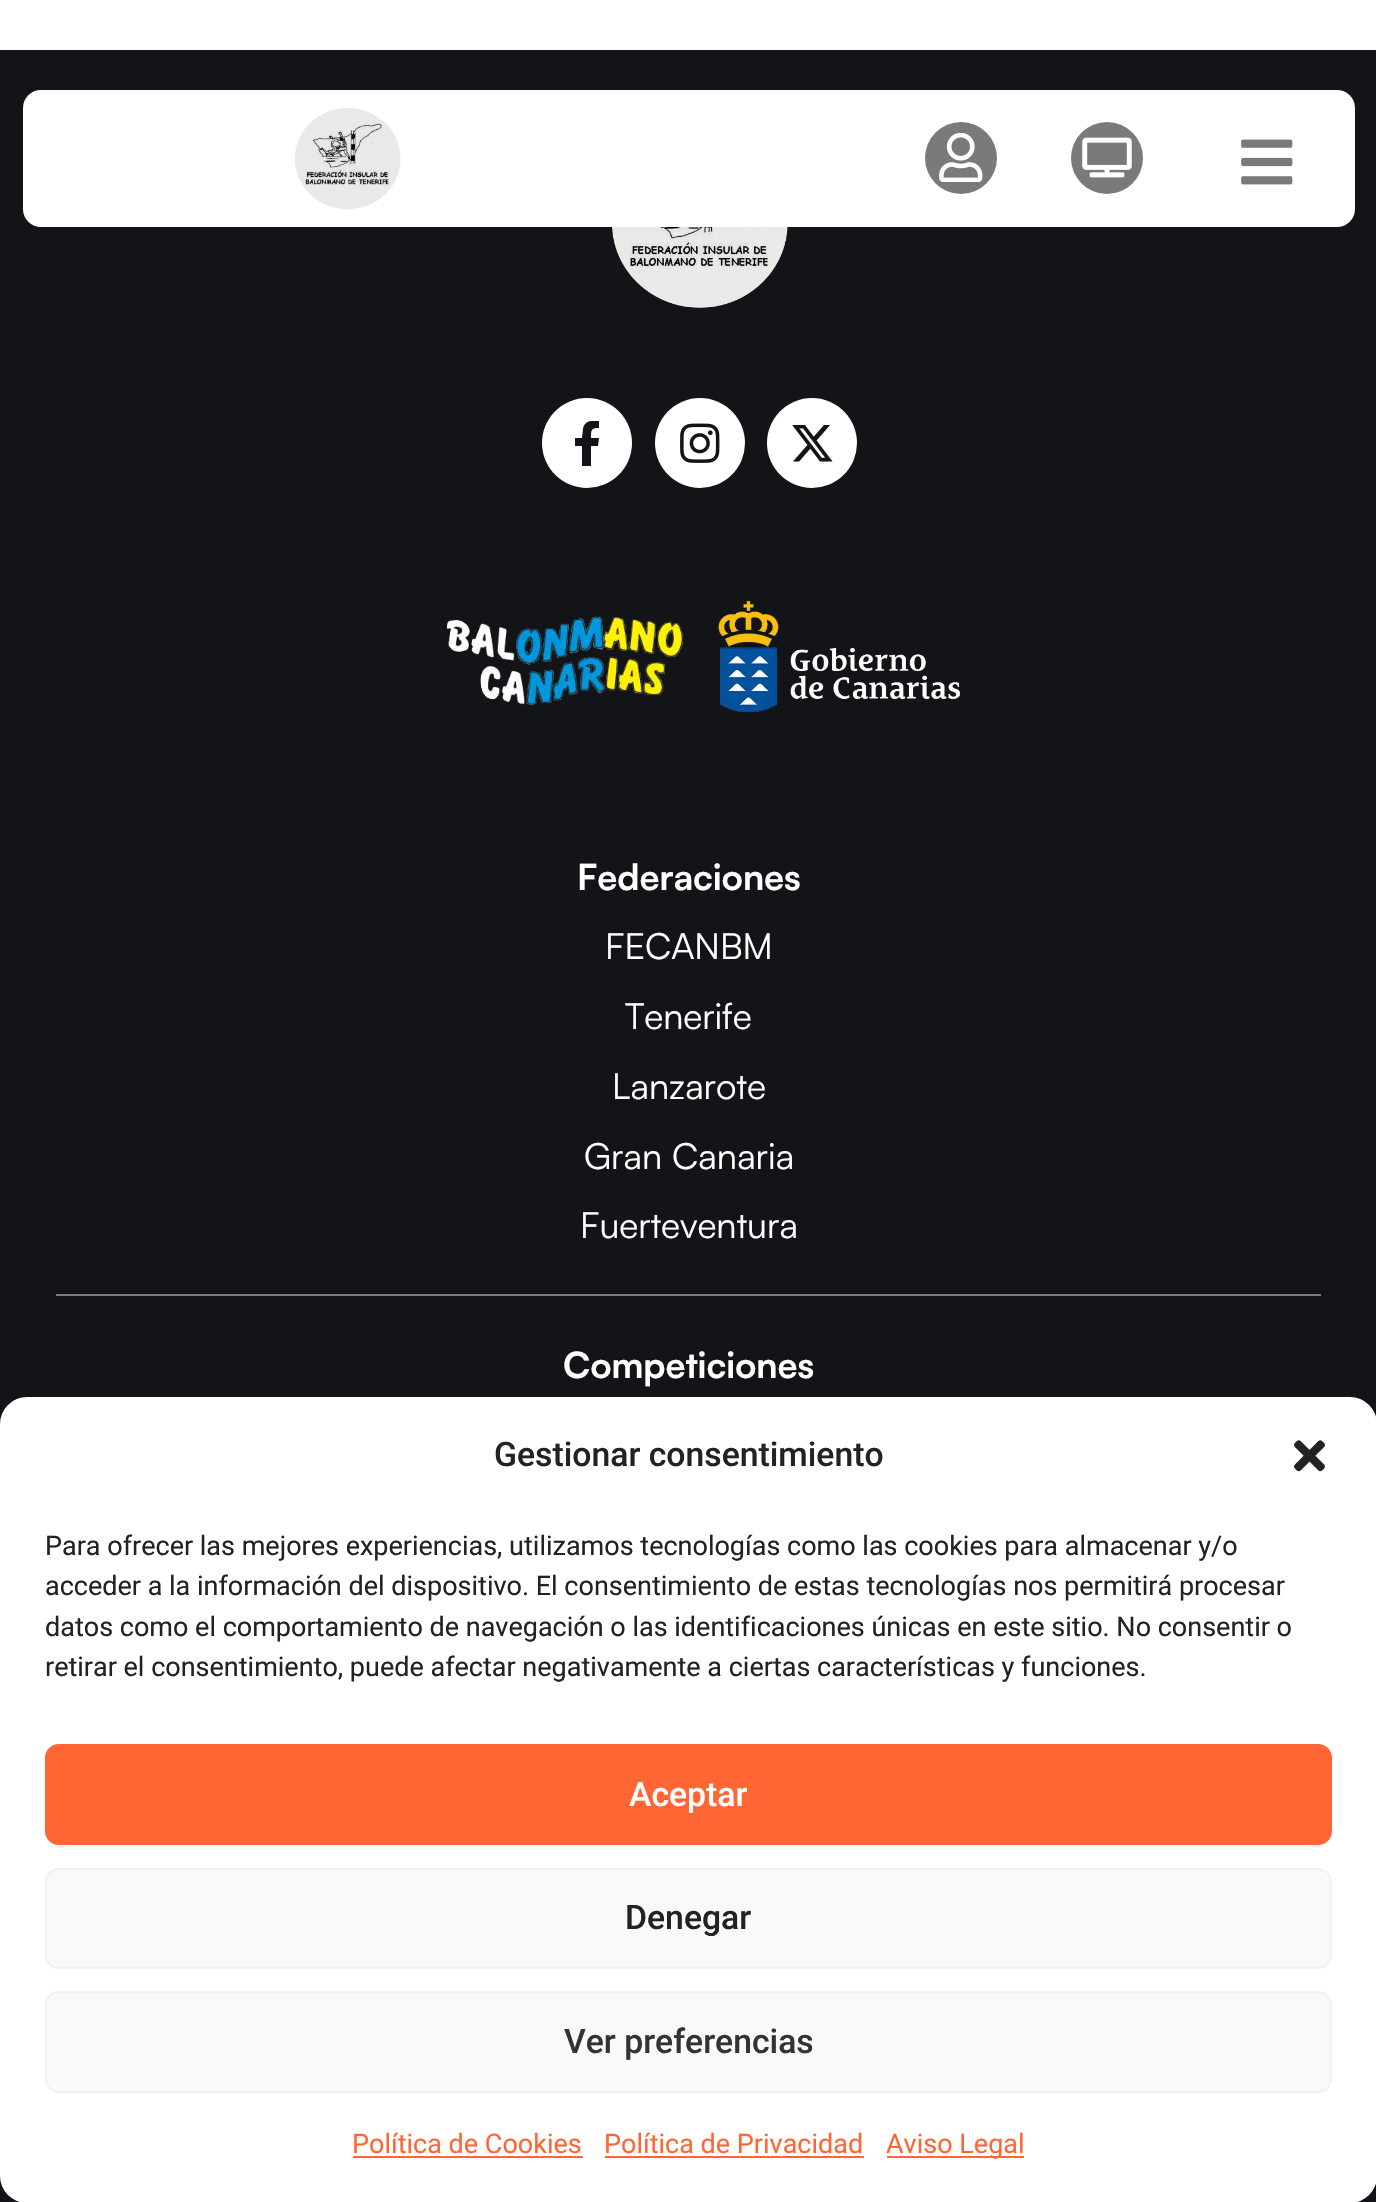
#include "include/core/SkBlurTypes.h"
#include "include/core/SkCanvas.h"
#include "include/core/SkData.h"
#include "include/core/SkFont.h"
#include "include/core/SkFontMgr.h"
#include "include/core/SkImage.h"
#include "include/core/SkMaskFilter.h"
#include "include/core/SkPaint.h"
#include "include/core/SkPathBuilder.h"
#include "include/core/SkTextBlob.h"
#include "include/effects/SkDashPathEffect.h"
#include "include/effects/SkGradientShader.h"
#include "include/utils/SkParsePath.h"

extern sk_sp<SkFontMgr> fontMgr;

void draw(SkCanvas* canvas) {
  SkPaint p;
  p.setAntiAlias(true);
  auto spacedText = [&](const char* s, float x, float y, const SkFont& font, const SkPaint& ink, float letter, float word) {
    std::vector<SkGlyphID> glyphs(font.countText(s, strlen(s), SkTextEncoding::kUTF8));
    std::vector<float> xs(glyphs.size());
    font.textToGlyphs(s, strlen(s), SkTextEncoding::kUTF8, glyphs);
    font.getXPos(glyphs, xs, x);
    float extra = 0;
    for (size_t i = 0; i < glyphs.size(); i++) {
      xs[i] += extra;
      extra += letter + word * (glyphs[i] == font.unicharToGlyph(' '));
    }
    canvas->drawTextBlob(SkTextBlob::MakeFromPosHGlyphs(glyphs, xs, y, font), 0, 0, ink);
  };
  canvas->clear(SK_ColorWHITE);
  p.setColor(SkColorSetRGB(19, 20, 23));
  canvas->drawRect(SkRect::MakeLTRB(0, 50, 1376, 2202), p);
  p.setColor(SK_ColorWHITE);
  canvas->drawRoundRect(SkRect::MakeLTRB(23, 90, 1355, 227), 18, 18, p);
  canvas->drawImageRect(SkImages::DeferredFromEncodedData(SkData::MakeFromFileName("images/1.png")), SkRect::MakeLTRB(294, 108, 401, 210), SkSamplingOptions());
  p.setColor(SkColorSetRGB(122, 122, 122));
  canvas->drawCircle(961, 158, 36, p);
  canvas->drawImageRect(SkImages::DeferredFromEncodedData(SkData::MakeFromFileName("images/2.png")), SkRect::MakeLTRB(939, 133, 983, 182), SkSamplingOptions());
  canvas->drawCircle(1107, 158, 36, p);
  canvas->drawImageRect(SkImages::DeferredFromEncodedData(SkData::MakeFromFileName("images/3.png")), SkRect::MakeLTRB(1082, 137, 1132, 178), SkSamplingOptions());
  canvas->drawImageRect(SkImages::DeferredFromEncodedData(SkData::MakeFromFileName("images/4.png")), SkRect::MakeLTRB(1241, 139, 1293, 185), SkSamplingOptions());
  canvas->drawImageRect(SkImages::DeferredFromEncodedData(SkData::MakeFromFileName("images/5.png")), SkRect::MakeLTRB(612, 227, 788, 308), SkSamplingOptions());
  p.setColor(SK_ColorWHITE);
  canvas->drawCircle(587, 443, 45, p);
  canvas->save();
  canvas->clipRect(SkRect::MakeLTRB(565, 421, 610, 466));
  p.setColor(SkColorSetRGB(19, 20, 23));
  canvas->drawPath(SkPathBuilder().moveTo(598, 446).lineTo(599, 438).lineTo(591, 438).cubicTo(591, 430, 591, 428, 599, 428).lineTo(599, 421).cubicTo(592, 420, 584, 421, 583, 429).lineTo(582, 438).lineTo(575, 438).lineTo(575, 446).lineTo(582, 446).lineTo(582, 466).lineTo(591, 466).lineTo(591, 446).close().detach(), p);
  canvas->restore();
  p.setColor(SK_ColorWHITE);
  canvas->drawCircle(700, 443, 45, p);
  canvas->drawImageRect(SkImages::DeferredFromEncodedData(SkData::MakeFromFileName("images/6.png")), SkRect::MakeLTRB(680, 423, 720, 463), SkSamplingOptions());
  canvas->drawCircle(812, 443, 45, p);
  canvas->drawImageRect(SkImages::DeferredFromEncodedData(SkData::MakeFromFileName("images/7.png")), SkRect::MakeLTRB(792, 425, 833, 462), SkSamplingOptions());
  canvas->drawImageRect(SkImages::DeferredFromEncodedData(SkData::MakeFromFileName("images/8.png")), SkRect::MakeLTRB(446, 616, 684, 705), SkSamplingOptions());
  canvas->drawImageRect(SkImages::DeferredFromEncodedData(SkData::MakeFromFileName("images/9.png")), SkRect::MakeLTRB(718, 601, 960, 712), SkSamplingOptions());
  p.setColor(SkColorSetRGB(122, 122, 122));
  canvas->drawRect(SkRect::MakeLTRB(56, 1294, 1321, 1296), p);
  p.setColor(SK_ColorWHITE);
  canvas->drawRoundRect(SkRect::MakeLTRB(0, 1397, 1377, 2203), 27, 27, p);
  canvas->drawImageRect(SkImages::DeferredFromEncodedData(SkData::MakeFromFileName("images/10.png")), SkRect::MakeLTRB(1294, 1440, 1325, 1472), SkSamplingOptions());
  p.setColor(SkColorSetRGB(255, 102, 51));
  canvas->drawRoundRect(SkRect::MakeLTRB(46, 1745, 1331, 1844), 13, 13, p);
  p.setStyle(SkPaint::kStroke_Style);
  p.setStrokeWidth(2);
  canvas->drawRoundRect(SkRect::MakeLTRB(46, 1745, 1331, 1844), 13, 13, p);
  p.setStyle(SkPaint::kFill_Style);
  p.setColor(SkColorSetRGB(249, 249, 249));
  canvas->drawRoundRect(SkRect::MakeLTRB(46, 1869, 1331, 1968), 13, 13, p);
  p.setStyle(SkPaint::kStroke_Style);
  p.setColor(SkColorSetRGB(242, 242, 242));
  canvas->drawRoundRect(SkRect::MakeLTRB(46, 1869, 1331, 1968), 13, 13, p);
  p.setStyle(SkPaint::kFill_Style);
  p.setColor(SkColorSetRGB(249, 249, 249));
  canvas->drawRoundRect(SkRect::MakeLTRB(46, 1992, 1331, 2092), 13, 13, p);
  p.setStyle(SkPaint::kStroke_Style);
  p.setColor(SkColorSetRGB(242, 242, 242));
  canvas->drawRoundRect(SkRect::MakeLTRB(46, 1992, 1331, 2092), 13, 13, p);
  p.setStyle(SkPaint::kFill_Style);
  p.setColor(SkColorSetRGB(255, 102, 51));
  canvas->drawRect(SkRect::MakeLTRB(353, 2156, 583, 2158), p);
  canvas->drawRect(SkRect::MakeLTRB(605, 2156, 864, 2158), p);
  canvas->drawRect(SkRect::MakeLTRB(887, 2156, 1024, 2158), p);
  SkFont font1(fontMgr->matchFamilyStyle("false", SkFontStyle::Bold()), 36);
  font1.setSubpixel(true);
  p.setColor(SK_ColorWHITE);
  spacedText("Federaciones", 577, 890, font1, p, -0.1f, 0);
  SkFont font2(fontMgr->matchFamilyStyle("Satoshi", SkFontStyle::Normal()), 36);
  font2.setSubpixel(true);
  spacedText("FECANBM", 605, 959, font2, p, -0.1f, 0);
  spacedText("Tenerife", 625, 1029, font2, p, -0.1f, 0);
  spacedText("Lanzarote", 612, 1099, font2, p, -0.1f, 0);
  spacedText("Gran Canaria", 584, 1169, font2, p, -0.1f, 0);
  spacedText("Fuerteventura", 580, 1238, font2, p, -0.1f, 0);
  spacedText("Competiciones", 563, 1378, font1, p, -0.1f, 0);
  SkFont font3(fontMgr->matchFamilyStyle("Roboto", SkFontStyle(500, SkFontStyle::kNormal_Width, SkFontStyle::kUpright_Slant)), 33.75f);
  font3.setSubpixel(true);
  p.setColor(SkColorSetRGB(34, 34, 34));
  canvas->drawString("Gestionar consentimiento", 494, 1466, font3, p);
  SkFont font4(fontMgr->matchFamilyStyle("Roboto", SkFontStyle::Normal()), 27);
  font4.setSubpixel(true);
  canvas->drawString("Para ofrecer las mejores experiencias, utilizamos tecnologías como las cookies para almacenar y/o", 45, 1555, font4, p);
  canvas->drawString("acceder a la información del dispositivo. El consentimiento de estas tecnologías nos permitirá procesar", 45, 1595, font4, p);
  canvas->drawString("datos como el comportamiento de navegación o las identificaciones únicas en este sitio. No consentir o", 45, 1636, font4, p);
  canvas->drawString("retirar el consentimiento, puede afectar negativamente a ciertas características y funciones.", 45, 1676, font4, p);
  p.setColor(SK_ColorWHITE);
  canvas->drawString("Aceptar", 629, 1806, font3, p);
  p.setColor(SkColorSetRGB(34, 34, 34));
  canvas->drawString("Denegar", 625, 1929, font3, p);
  p.setColor(SkColorSetRGB(51, 51, 51));
  canvas->drawString("Ver preferencias", 564, 2053, font3, p);
  p.setColor(SkColorSetRGB(255, 102, 51));
  canvas->drawString("Política de Cookies", 352, 2153, font4, p);
  canvas->drawString("Política de Privacidad", 604, 2153, font4, p);
  canvas->drawString("Aviso Legal", 886, 2153, font4, p);
}
